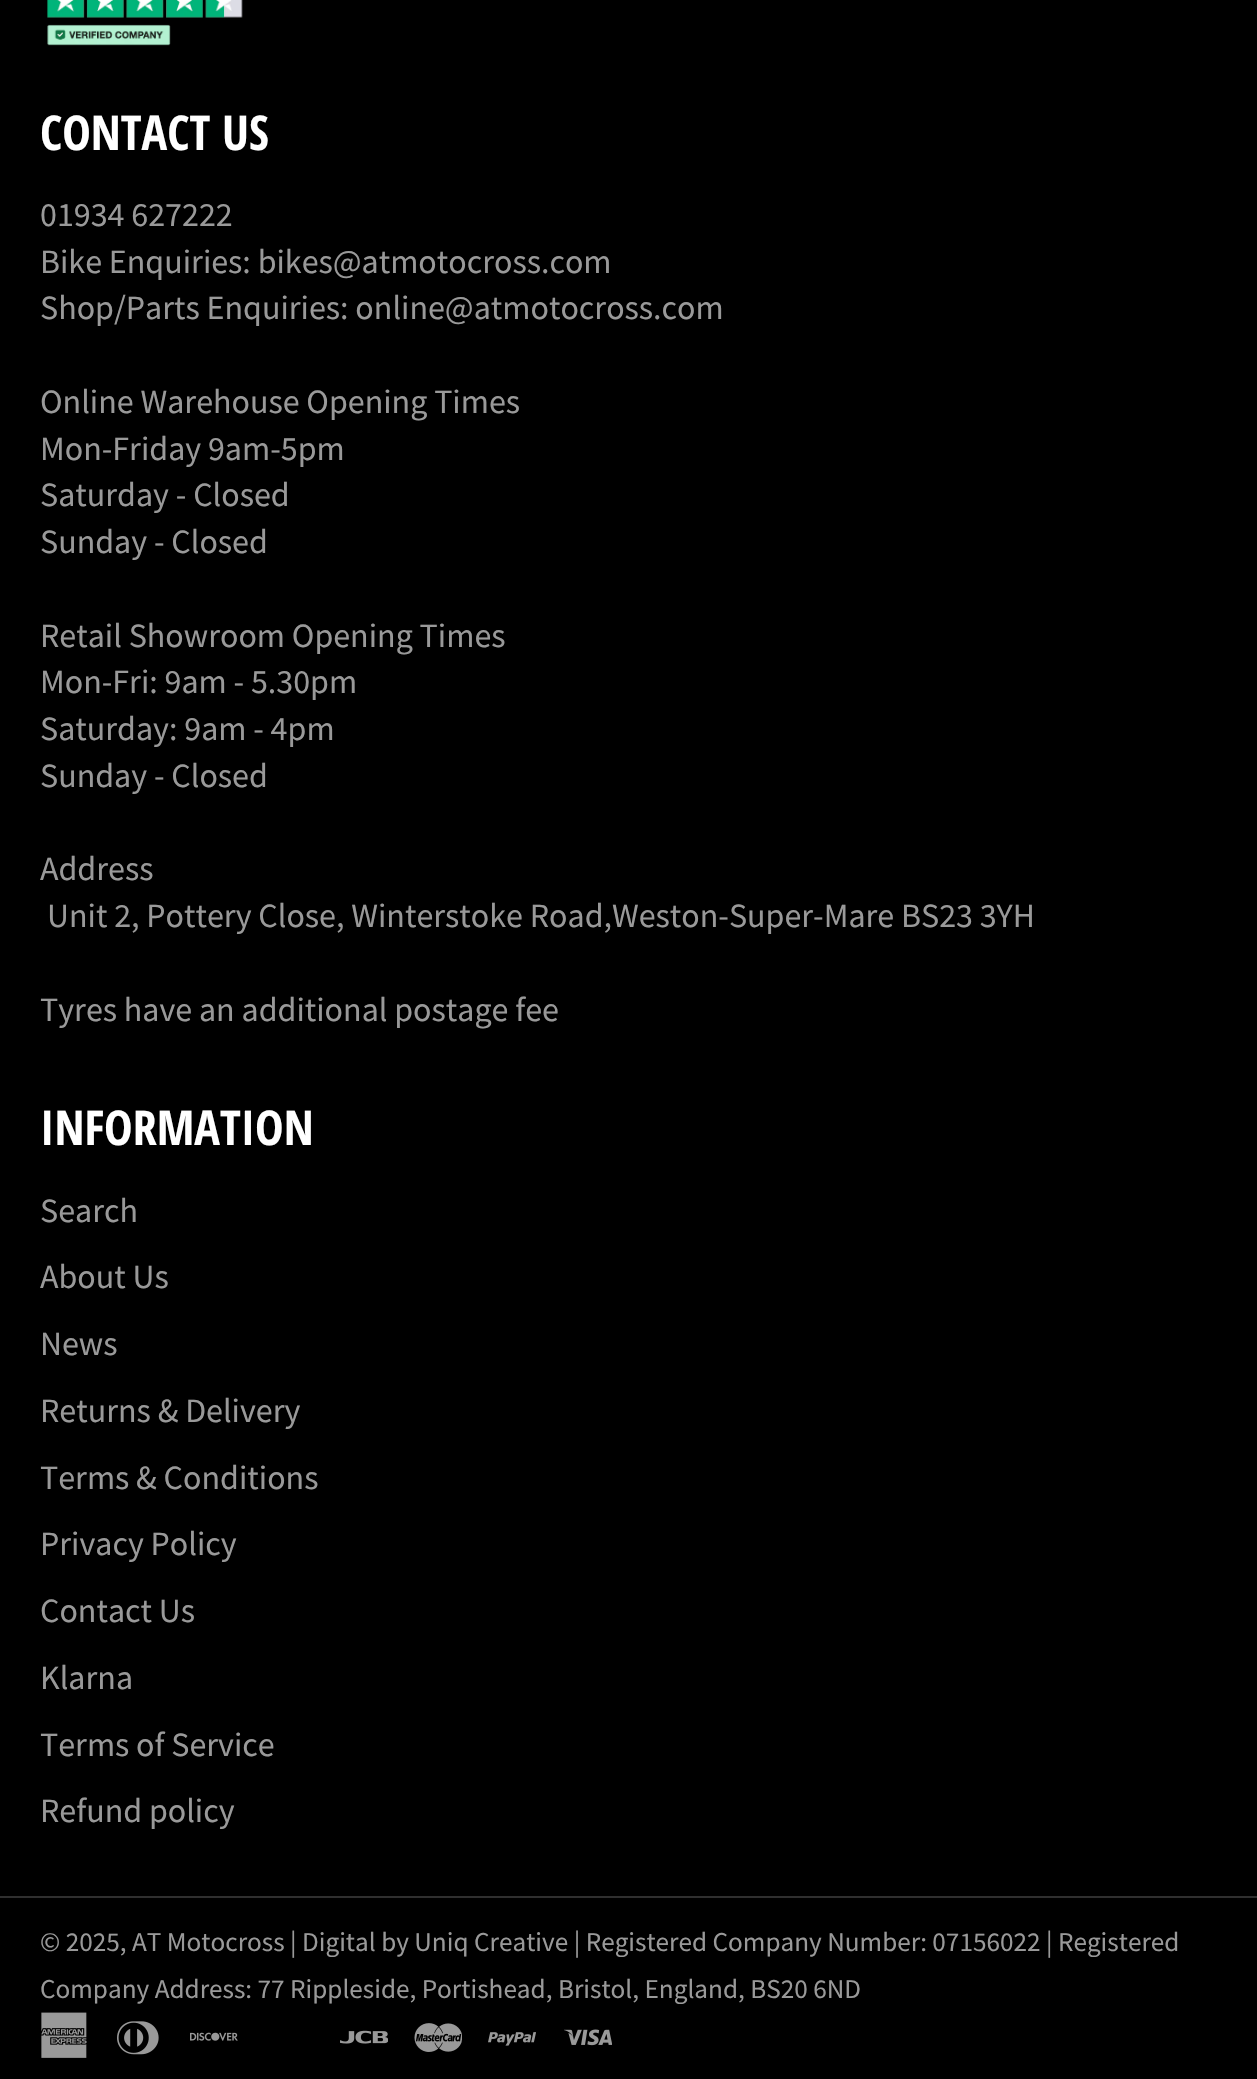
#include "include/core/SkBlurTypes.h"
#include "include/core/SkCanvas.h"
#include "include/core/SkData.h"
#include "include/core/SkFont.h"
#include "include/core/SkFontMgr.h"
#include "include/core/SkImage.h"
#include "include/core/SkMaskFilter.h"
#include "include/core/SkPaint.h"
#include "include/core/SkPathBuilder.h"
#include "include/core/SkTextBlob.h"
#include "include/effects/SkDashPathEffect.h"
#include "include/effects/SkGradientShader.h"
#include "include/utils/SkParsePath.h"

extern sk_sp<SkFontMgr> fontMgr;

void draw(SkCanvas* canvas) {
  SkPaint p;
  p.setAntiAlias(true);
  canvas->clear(SK_ColorBLACK);
  canvas->drawImageRect(SkImages::DeferredFromEncodedData(SkData::MakeFromFileName("images/1.png")), SkRect::MakeLTRB(47, 0, 243, 46), SkSamplingOptions());
  p.setColor(SkColorSetRGB(47, 47, 47));
  canvas->drawRect(SkRect::MakeLTRB(0, 1896, 1257, 1898), p);
  canvas->drawImageRect(SkImages::DeferredFromEncodedData(SkData::MakeFromFileName("images/2.png")), SkRect::MakeLTRB(41, 2012, 87, 2058), SkSamplingOptions());
  canvas->drawImageRect(SkImages::DeferredFromEncodedData(SkData::MakeFromFileName("images/3.png")), SkRect::MakeLTRB(117, 2021, 159, 2055), SkSamplingOptions());
  canvas->drawImageRect(SkImages::DeferredFromEncodedData(SkData::MakeFromFileName("images/4.png")), SkRect::MakeLTRB(190, 2032, 238, 2041), SkSamplingOptions());
  canvas->drawImageRect(SkImages::DeferredFromEncodedData(SkData::MakeFromFileName("images/5.png")), SkRect::MakeLTRB(340, 2030, 388, 2044), SkSamplingOptions());
  canvas->drawImageRect(SkImages::DeferredFromEncodedData(SkData::MakeFromFileName("images/6.png")), SkRect::MakeLTRB(414, 2023, 462, 2052), SkSamplingOptions());
  canvas->drawImageRect(SkImages::DeferredFromEncodedData(SkData::MakeFromFileName("images/7.png")), SkRect::MakeLTRB(488, 2032, 536, 2046), SkSamplingOptions());
  canvas->drawImageRect(SkImages::DeferredFromEncodedData(SkData::MakeFromFileName("images/8.png")), SkRect::MakeLTRB(564, 2029, 612, 2046), SkSamplingOptions());
  SkFont font1(fontMgr->matchFamilyStyle("Open Sans Condensed", SkFontStyle::Bold()), 48);
  font1.setSubpixel(true);
  p.setColor(SK_ColorWHITE);
  canvas->drawString("CONTACT US", 40, 150, font1, p);
  SkFont font2(fontMgr->matchFamilyStyle("Source Sans Pro", SkFontStyle::Normal()), 34);
  font2.setSubpixel(true);
  p.setColor(SkColorSetRGB(153, 153, 153));
  canvas->drawString("01934 627222", 40, 226, font2, p);
  canvas->drawString("Bike Enquiries: bikes@atmotocross.com", 40, 273, font2, p);
  canvas->drawString("Shop/Parts Enquiries: online@atmotocross.com", 40, 319, font2, p);
  canvas->drawString("Online Warehouse Opening Times", 40, 413, font2, p);
  canvas->drawString("Mon-Friday 9am-5pm", 40, 460, font2, p);
  canvas->drawString("Saturday - Closed", 40, 506, font2, p);
  canvas->drawString("Sunday - Closed", 40, 553, font2, p);
  canvas->drawString("Retail Showroom Opening Times", 40, 647, font2, p);
  canvas->drawString("Mon-Fri: 9am - 5.30pm", 40, 693, font2, p);
  canvas->drawString("Saturday: 9am - 4pm", 40, 740, font2, p);
  canvas->drawString("Sunday - Closed", 40, 787, font2, p);
  canvas->drawString("Address", 40, 880, font2, p);
  canvas->drawString("Unit 2, Pottery Close, Winterstoke Road,Weston-Super-Mare BS23 3YH", 47, 927, font2, p);
  canvas->drawString("Tyres have an additional postage fee", 40, 1021, font2, p);
  p.setColor(SK_ColorWHITE);
  canvas->drawString("INFORMATION", 40, 1145, font1, p);
  p.setColor(SkColorSetRGB(153, 153, 153));
  canvas->drawString("Search", 40, 1222, font2, p);
  canvas->drawString("About Us", 40, 1288, font2, p);
  canvas->drawString("News", 40, 1355, font2, p);
  canvas->drawString("Returns & Delivery", 40, 1422, font2, p);
  canvas->drawString("Terms & Conditions", 40, 1489, font2, p);
  canvas->drawString("Privacy Policy", 40, 1555, font2, p);
  canvas->drawString("Contact Us", 40, 1622, font2, p);
  canvas->drawString("Klarna", 40, 1689, font2, p);
  canvas->drawString("Terms of Service", 40, 1756, font2, p);
  canvas->drawString("Refund policy", 40, 1822, font2, p);
  SkFont font3(fontMgr->matchFamilyStyle("Source Sans Pro", SkFontStyle::Normal()), 27.2f);
  font3.setSubpixel(true);
  canvas->drawString("© 2025, AT Motocross | Digital by Uniq Creative | Registered Company Number: 07156022 | Registered", 40, 1951, font3, p);
  canvas->drawString("Company Address: 77 Rippleside, Portishead, Bristol, England, BS20 6ND", 40, 1998, font3, p);
}
